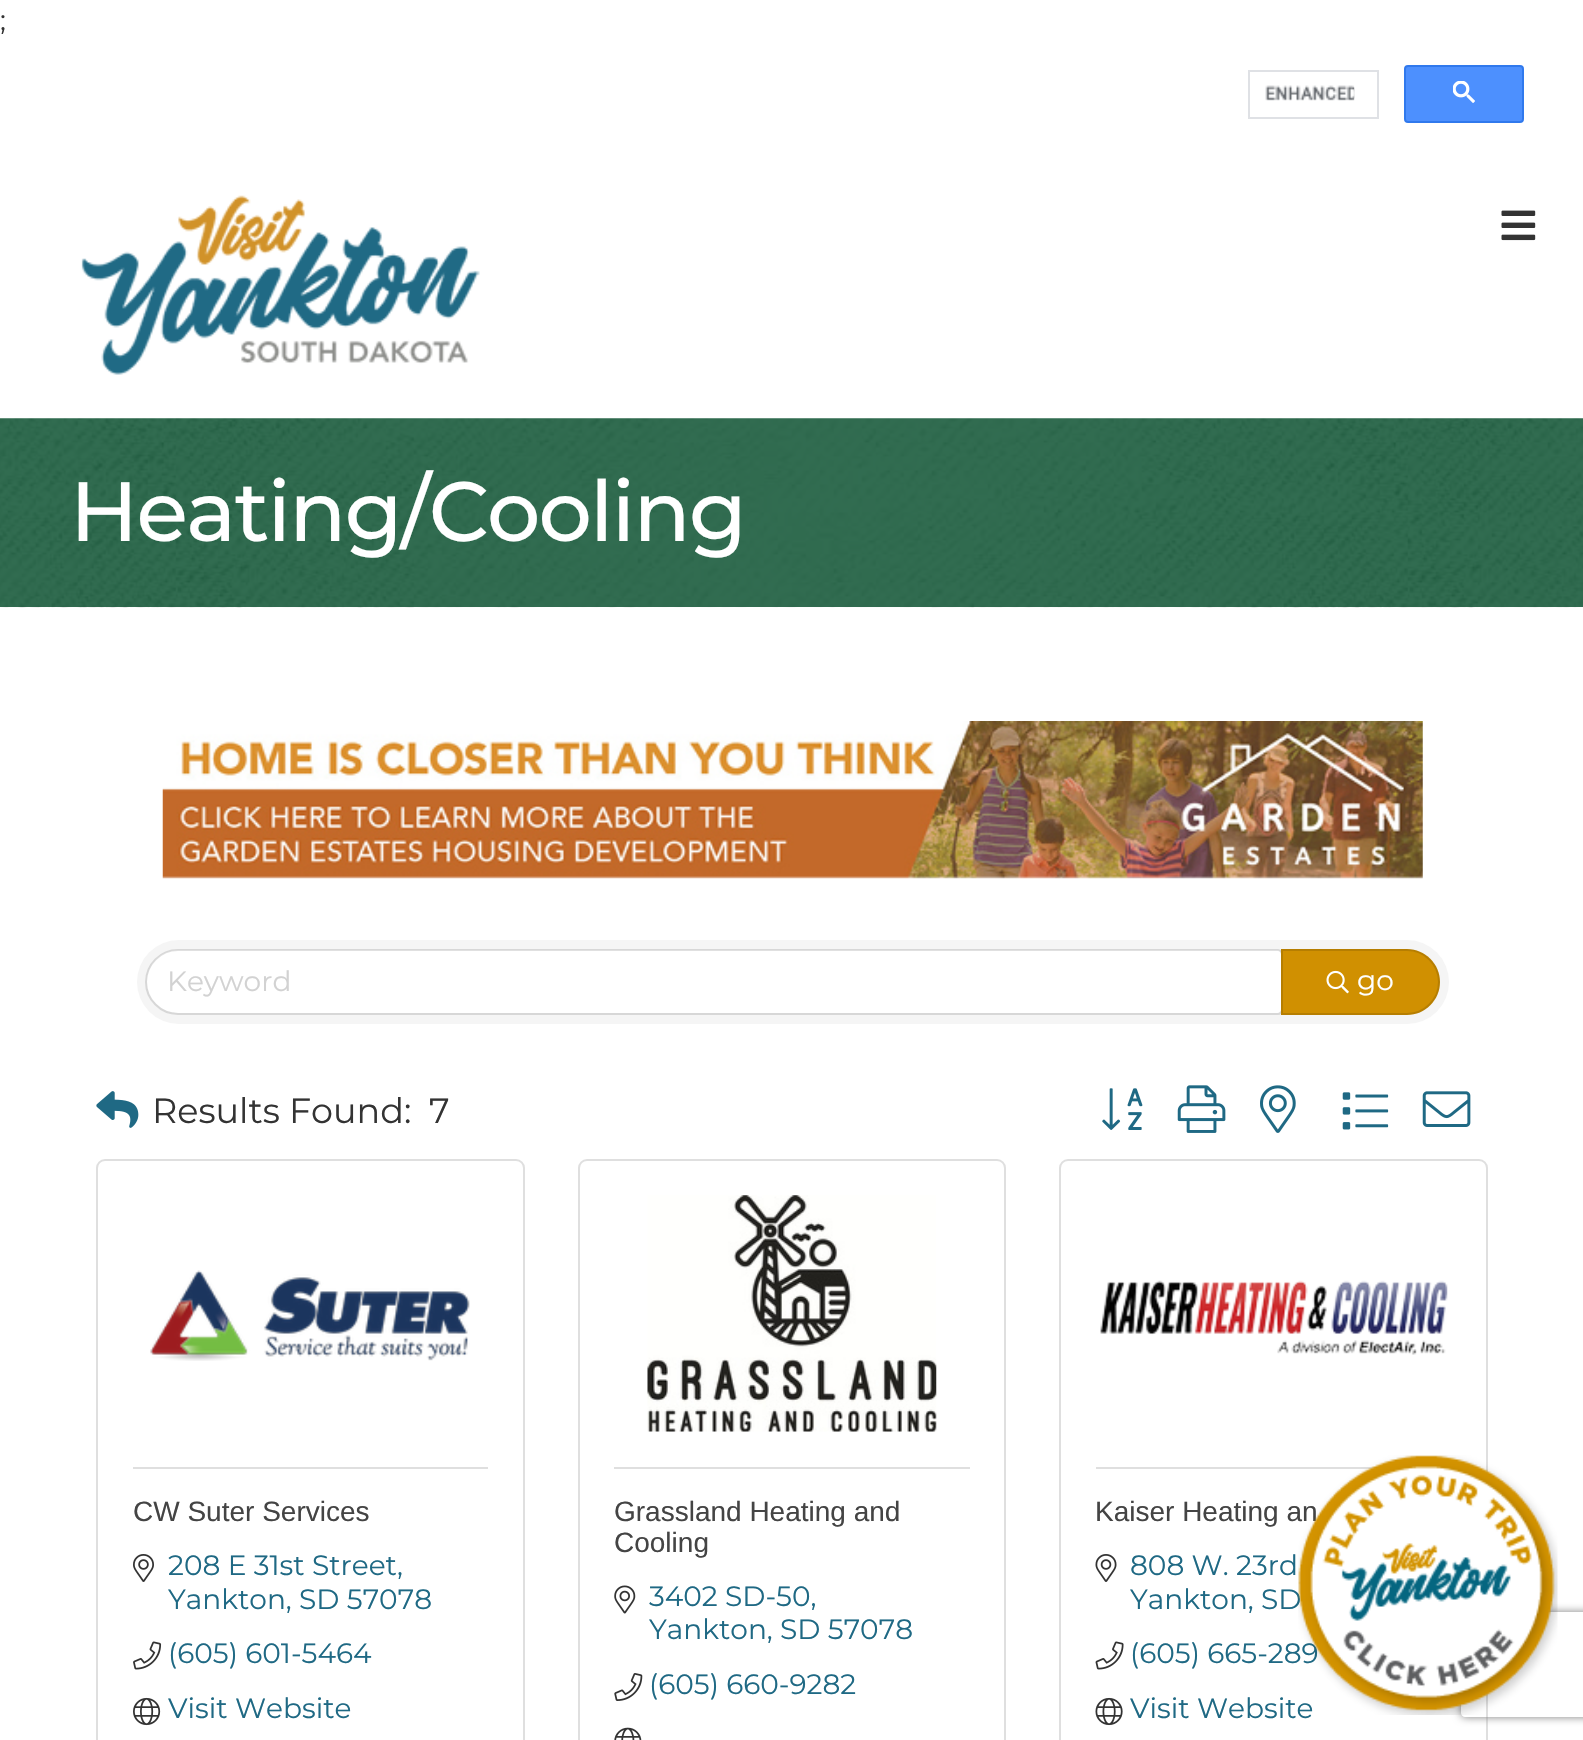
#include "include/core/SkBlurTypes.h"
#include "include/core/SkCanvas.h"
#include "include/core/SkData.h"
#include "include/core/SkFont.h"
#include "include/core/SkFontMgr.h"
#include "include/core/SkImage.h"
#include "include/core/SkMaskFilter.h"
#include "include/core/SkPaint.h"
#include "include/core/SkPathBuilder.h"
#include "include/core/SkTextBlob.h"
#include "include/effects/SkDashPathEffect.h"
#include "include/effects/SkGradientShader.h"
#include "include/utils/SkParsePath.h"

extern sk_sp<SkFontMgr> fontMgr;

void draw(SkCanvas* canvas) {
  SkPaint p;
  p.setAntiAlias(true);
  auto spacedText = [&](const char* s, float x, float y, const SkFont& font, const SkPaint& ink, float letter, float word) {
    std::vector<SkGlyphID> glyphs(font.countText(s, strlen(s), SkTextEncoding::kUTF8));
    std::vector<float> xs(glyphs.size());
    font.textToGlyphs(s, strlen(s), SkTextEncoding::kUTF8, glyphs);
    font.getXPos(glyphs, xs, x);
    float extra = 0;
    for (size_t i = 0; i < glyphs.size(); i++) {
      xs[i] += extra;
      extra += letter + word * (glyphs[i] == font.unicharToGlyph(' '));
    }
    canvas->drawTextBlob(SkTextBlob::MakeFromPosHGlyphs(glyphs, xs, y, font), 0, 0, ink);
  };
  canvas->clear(SK_ColorWHITE);
  p.setStyle(SkPaint::kStroke_Style);
  p.setStrokeWidth(2);
  p.setColor(SkColorSetRGB(223, 225, 229));
  canvas->drawRect(SkRect::MakeLTRB(1249, 71, 1378, 118), p);
  canvas->drawImageRect(SkImages::DeferredFromEncodedData(SkData::MakeFromFileName("images/1.png")), SkRect::MakeLTRB(1265, 85, 1355, 101), SkSamplingOptions());
  p.setStyle(SkPaint::kFill_Style);
  p.setColor(SkColorSetRGB(77, 144, 254));
  canvas->drawRoundRect(SkRect::MakeLTRB(1405, 66, 1523, 122), 3, 3, p);
  p.setStyle(SkPaint::kStroke_Style);
  p.setColor(SkColorSetRGB(48, 121, 237));
  canvas->drawRoundRect(SkRect::MakeLTRB(1405, 66, 1523, 122), 3, 3, p);
  canvas->drawImageRect(SkImages::DeferredFromEncodedData(SkData::MakeFromFileName("images/2.png")), SkRect::MakeLTRB(1453, 81, 1475, 103), SkSamplingOptions());
  canvas->drawImageRect(SkImages::DeferredFromEncodedData(SkData::MakeFromFileName("images/3.png")), SkRect::MakeLTRB(81, 195, 480, 375), SkSamplingOptions());
  canvas->drawImageRect(SkImages::DeferredFromEncodedData(SkData::MakeFromFileName("images/4.png")), SkRect::MakeLTRB(1501, 210, 1536, 241), SkSamplingOptions());
  canvas->drawImageRect(SkImages::DeferredFromEncodedData(SkData::MakeFromFileName("images/5.png")), SkRect::MakeLTRB(0, 418, 1583, 608), SkSamplingOptions());
  canvas->drawImageRect(SkImages::DeferredFromEncodedData(SkData::MakeFromFileName("images/6.png")), SkRect::MakeLTRB(162, 721, 1423, 879), SkSamplingOptions());
  p.setStyle(SkPaint::kFill_Style);
  p.setColor(SkColorSetRGB(245, 245, 245));
  canvas->drawRoundRect(SkRect::MakeLTRB(137, 940, 1449, 1024), 42, 42, p);
  p.setColor(SK_ColorWHITE);
  canvas->drawPath(SkPathBuilder().moveTo(178.5f, 950).lineTo(1277, 950).cubicTo(1279, 950, 1281, 952, 1281, 954).lineTo(1281, 1009).cubicTo(1281, 1011, 1279, 1013, 1277, 1013).lineTo(178.5f, 1013).cubicTo(161, 1013, 147, 999, 147, 981.5f).cubicTo(147, 964, 161, 950, 178.5f, 950).close().detach(), p);
  p.setStyle(SkPaint::kStroke_Style);
  p.setColor(SkColorSetARGB(31, 0, 0, 0));
  canvas->drawPath(SkPathBuilder().moveTo(178, 950).lineTo(1278, 950).cubicTo(1280, 950, 1282, 952, 1282, 954).lineTo(1282, 1010).cubicTo(1282, 1012, 1280, 1014, 1278, 1014).lineTo(178, 1014).cubicTo(160.5f, 1014, 146, 999.5f, 146, 982).cubicTo(146, 964.5f, 160.5f, 950, 178, 950).close().detach(), p);
  p.setStyle(SkPaint::kFill_Style);
  p.setColor(SkColorSetRGB(208, 144, 1));
  canvas->drawPath(SkPathBuilder().moveTo(1281, 949).lineTo(1407, 949).cubicTo(1425, 949, 1440, 964, 1440, 982).cubicTo(1440, 1000, 1425, 1015, 1407, 1015).lineTo(1281, 1015).close().detach(), p);
  p.setStyle(SkPaint::kStroke_Style);
  p.setColor(SkColorSetARGB(31, 0, 0, 0));
  canvas->drawPath(SkPathBuilder().moveTo(1282, 950).lineTo(1407, 950).cubicTo(1424.5f, 950, 1439, 964.5f, 1439, 982).cubicTo(1439, 999.5f, 1424.5f, 1014, 1407, 1014).lineTo(1282, 1014).close().detach(), p);
  canvas->drawImageRect(SkImages::DeferredFromEncodedData(SkData::MakeFromFileName("images/7.png")), SkRect::MakeLTRB(1326, 970, 1349, 994), SkSamplingOptions());
  canvas->drawImageRect(SkImages::DeferredFromEncodedData(SkData::MakeFromFileName("images/8.png")), SkRect::MakeLTRB(96, 1091, 139, 1128), SkSamplingOptions());
  canvas->drawImageRect(SkImages::DeferredFromEncodedData(SkData::MakeFromFileName("images/9.png")), SkRect::MakeLTRB(1102, 1088, 1143, 1130), SkSamplingOptions());
  canvas->drawImageRect(SkImages::DeferredFromEncodedData(SkData::MakeFromFileName("images/10.png")), SkRect::MakeLTRB(1177, 1085, 1226, 1133), SkSamplingOptions());
  canvas->drawImageRect(SkImages::DeferredFromEncodedData(SkData::MakeFromFileName("images/11.png")), SkRect::MakeLTRB(1260, 1085, 1296, 1133), SkSamplingOptions());
  canvas->drawImageRect(SkImages::DeferredFromEncodedData(SkData::MakeFromFileName("images/12.png")), SkRect::MakeLTRB(1342, 1092, 1389, 1130), SkSamplingOptions());
  canvas->drawImageRect(SkImages::DeferredFromEncodedData(SkData::MakeFromFileName("images/13.png")), SkRect::MakeLTRB(1422, 1091, 1471, 1127), SkSamplingOptions());
  p.setColor(SkColorSetRGB(223, 223, 223));
  canvas->drawRoundRect(SkRect::MakeLTRB(97, 1160, 524, 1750), 8, 8, p);
  canvas->drawImageRect(SkImages::DeferredFromEncodedData(SkData::MakeFromFileName("images/14.png")), SkRect::MakeLTRB(150, 1270, 470, 1361), SkSamplingOptions());
  p.setStyle(SkPaint::kFill_Style);
  canvas->drawRect(SkRect::MakeLTRB(133, 1467, 488, 1469), p);
  canvas->drawImageRect(SkImages::DeferredFromEncodedData(SkData::MakeFromFileName("images/15.png")), SkRect::MakeLTRB(133, 1554, 154, 1582), SkSamplingOptions());
  canvas->drawImageRect(SkImages::DeferredFromEncodedData(SkData::MakeFromFileName("images/16.png")), SkRect::MakeLTRB(133, 1641, 162, 1670), SkSamplingOptions());
  canvas->drawImageRect(SkImages::DeferredFromEncodedData(SkData::MakeFromFileName("images/17.png")), SkRect::MakeLTRB(133, 1697, 161, 1726), SkSamplingOptions());
  p.setStyle(SkPaint::kStroke_Style);
  canvas->drawRoundRect(SkRect::MakeLTRB(579, 1160, 1005, 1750), 8, 8, p);
  canvas->drawImageRect(SkImages::DeferredFromEncodedData(SkData::MakeFromFileName("images/18.png")), SkRect::MakeLTRB(647, 1195, 937, 1432), SkSamplingOptions());
  p.setStyle(SkPaint::kFill_Style);
  canvas->drawRect(SkRect::MakeLTRB(614, 1467, 970, 1469), p);
  canvas->drawImageRect(SkImages::DeferredFromEncodedData(SkData::MakeFromFileName("images/19.png")), SkRect::MakeLTRB(614, 1585, 636, 1614), SkSamplingOptions());
  canvas->drawImageRect(SkImages::DeferredFromEncodedData(SkData::MakeFromFileName("images/20.png")), SkRect::MakeLTRB(614, 1673, 643, 1701), SkSamplingOptions());
  canvas->drawImageRect(SkImages::DeferredFromEncodedData(SkData::MakeFromFileName("images/21.png")), SkRect::MakeLTRB(614, 1727, 642, 1740), SkSamplingOptions());
  p.setStyle(SkPaint::kStroke_Style);
  canvas->drawRoundRect(SkRect::MakeLTRB(1060, 1160, 1487, 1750), 8, 8, p);
  canvas->drawImageRect(SkImages::DeferredFromEncodedData(SkData::MakeFromFileName("images/22.png")), SkRect::MakeLTRB(1100, 1280, 1448, 1355), SkSamplingOptions());
  p.setStyle(SkPaint::kFill_Style);
  canvas->drawRect(SkRect::MakeLTRB(1096, 1467, 1376, 1469), p);
  canvas->drawImageRect(SkImages::DeferredFromEncodedData(SkData::MakeFromFileName("images/23.png")), SkRect::MakeLTRB(1095, 1554, 1117, 1582), SkSamplingOptions());
  canvas->drawImageRect(SkImages::DeferredFromEncodedData(SkData::MakeFromFileName("images/24.png")), SkRect::MakeLTRB(1095, 1641, 1124, 1670), SkSamplingOptions());
  canvas->drawImageRect(SkImages::DeferredFromEncodedData(SkData::MakeFromFileName("images/25.png")), SkRect::MakeLTRB(1095, 1697, 1123, 1726), SkSamplingOptions());
  canvas->save();
  canvas->clipPath(SkPathBuilder(SkPathFillType::kEvenOdd).moveTo(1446, 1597).lineTo(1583, 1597).lineTo(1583, 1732).lineTo(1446, 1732).close().moveTo(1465, 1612).lineTo(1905, 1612).cubicTo(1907, 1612, 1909, 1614, 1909, 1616).lineTo(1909, 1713).cubicTo(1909, 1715, 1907, 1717, 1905, 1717).lineTo(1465, 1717).cubicTo(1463, 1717, 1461, 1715, 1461, 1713).lineTo(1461, 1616).cubicTo(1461, 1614, 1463, 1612, 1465, 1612).close().detach(), true);
  p.setColor(SkColorSetRGB(128, 128, 128));
  p.setMaskFilter(SkMaskFilter::MakeBlur(kNormal_SkBlurStyle, 4.5f));
  canvas->drawRoundRect(SkRect::MakeLTRB(1461, 1612, 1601, 1717), 4, 4, p);
  p.setMaskFilter(nullptr);
  canvas->restore();
  SkFont font1(fontMgr->matchFamilyStyle("Montserrat", SkFontStyle::Normal()), 28);
  font1.setSubpixel(true);
  p.setColor(SkColorSetRGB(51, 51, 51));
  canvas->drawString(";", 0, 30, font1, p);
  SkFont font2(fontMgr->matchFamilyStyle("Montserrat", SkFontStyle(500, SkFontStyle::kNormal_Width, SkFontStyle::kUpright_Slant)), 84);
  font2.setSubpixel(true);
  p.setColor(SK_ColorWHITE);
  spacedText("Heating/Cooling", 70, 541, font2, p, -1.75f, 0);
  p.setColor(SkColorSetRGB(210, 210, 210));
  canvas->drawString("Keyword", 167, 991, font1, p);
  p.setColor(SK_ColorWHITE);
  canvas->drawString("go", 1357, 990, font1, p);
  SkFont font3(fontMgr->matchFamilyStyle("Montserrat", SkFontStyle::Normal()), 35);
  font3.setSubpixel(true);
  p.setColor(SkColorSetRGB(51, 51, 51));
  canvas->drawString("Results Found:", 152, 1123, font3, p);
  canvas->drawString("7", 429, 1123, font3, p);
  SkFont font4(fontMgr->matchFamilyStyle("Liberation Sans", SkFontStyle::Normal()), 28);
  font4.setSubpixel(true);
  p.setColor(SkColorSetRGB(68, 68, 68));
  canvas->drawString("CW Suter Services", 133, 1521, font4, p);
  p.setColor(SkColorSetRGB(31, 105, 132));
  canvas->drawString("208 E 31st Street,", 168, 1575, font1, p);
  canvas->drawString("Yankton, SD 57078", 168, 1609, font1, p);
  canvas->drawString("(605) 601-5464", 168, 1663, font1, p);
  canvas->drawString("Visit Website", 168, 1718, font1, p);
  p.setColor(SkColorSetRGB(68, 68, 68));
  canvas->drawString("Grassland Heating and", 614, 1521, font4, p);
  canvas->drawString("Cooling", 614, 1552, font4, p);
  p.setColor(SkColorSetRGB(31, 105, 132));
  canvas->drawString("3402 SD-50,", 649, 1606, font1, p);
  canvas->drawString("Yankton, SD 57078", 649, 1639, font1, p);
  canvas->drawString("(605) 660-9282", 649, 1694, font1, p);
  p.setColor(SkColorSetRGB(68, 68, 68));
  canvas->drawString("Kaiser Heating an", 1095, 1521, font4, p);
  p.setColor(SkColorSetRGB(31, 105, 132));
  canvas->drawString("808 W. 23rd", 1130, 1575, font1, p);
  canvas->drawString("Yankton, SD", 1130, 1609, font1, p);
  canvas->drawString("(605) 665-289", 1130, 1663, font1, p);
  canvas->drawString("Visit Website", 1130, 1718, font1, p);
  canvas->drawImageRect(SkImages::DeferredFromEncodedData(SkData::MakeFromFileName("images/26.png")), SkRect::MakeLTRB(1298, 1455, 1558, 1715), SkSamplingOptions());
}
